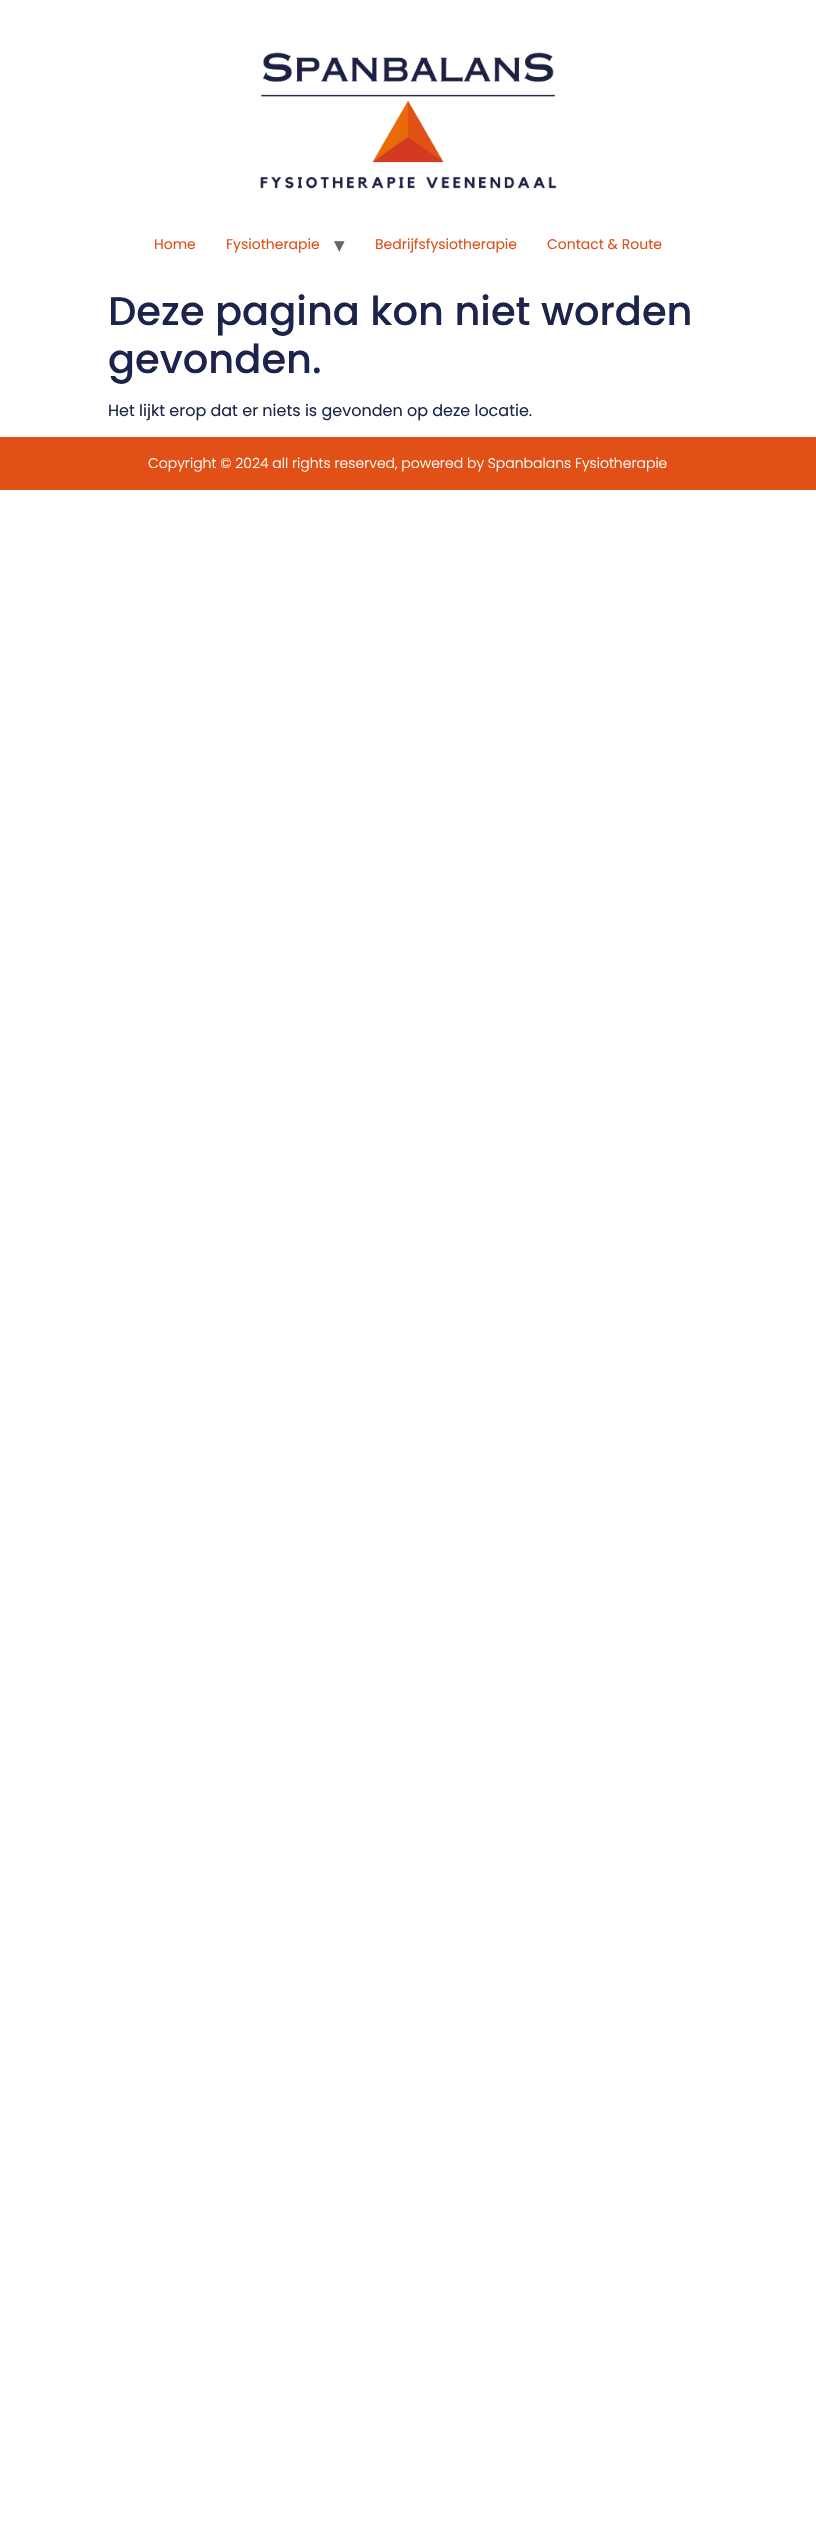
#include "include/core/SkBlurTypes.h"
#include "include/core/SkCanvas.h"
#include "include/core/SkData.h"
#include "include/core/SkFont.h"
#include "include/core/SkFontMgr.h"
#include "include/core/SkImage.h"
#include "include/core/SkMaskFilter.h"
#include "include/core/SkPaint.h"
#include "include/core/SkPathBuilder.h"
#include "include/core/SkTextBlob.h"
#include "include/effects/SkDashPathEffect.h"
#include "include/effects/SkGradientShader.h"
#include "include/utils/SkParsePath.h"

extern sk_sp<SkFontMgr> fontMgr;

void draw(SkCanvas* canvas) {
  SkPaint p;
  p.setAntiAlias(true);
  canvas->clear(SK_ColorWHITE);
  canvas->drawImageRect(SkImages::DeferredFromEncodedData(SkData::MakeFromFileName("images/1.png")), SkRect::MakeLTRB(260, 52, 557, 189), SkSamplingOptions());
  p.setColor(SkColorSetRGB(225, 81, 23));
  canvas->drawRect(SkRect::MakeLTRB(0, 437, 816, 490), p);
  SkFont font1(fontMgr->matchFamilyStyle("Poppins", SkFontStyle::Normal()), 14);
  font1.setSubpixel(true);
  canvas->drawString("Home", 154, 249, font1, p);
  canvas->drawString("Fysiotherapie", 226, 249, font1, p);
  SkFont font2(fontMgr->matchFamilyStyle("DejaVu Sans", SkFontStyle::Normal()), 21);
  font2.setSubpixel(true);
  p.setColor(SkColorSetRGB(102, 102, 102));
  canvas->drawString("▾", 334, 252, font2, p);
  p.setColor(SkColorSetRGB(225, 81, 23));
  canvas->drawString("Bedrijfsfysiotherapie", 375, 249, font1, p);
  canvas->drawString("Contact & Route", 547, 249, font1, p);
  SkFont font3(fontMgr->matchFamilyStyle("Poppins", SkFontStyle(500, SkFontStyle::kNormal_Width, SkFontStyle::kUpright_Slant)), 40);
  font3.setSubpixel(true);
  p.setColor(SkColorSetRGB(28, 36, 75));
  canvas->drawString("Deze pagina kon niet worden", 108, 325, font3, p);
  canvas->drawString("gevonden.", 108, 373, font3, p);
  SkFont font4(fontMgr->matchFamilyStyle("Poppins", SkFontStyle::Normal()), 16);
  font4.setSubpixel(true);
  canvas->drawString("Het lijkt erop dat er niets is gevonden op deze locatie.", 108, 416, font4, p);
  SkFont font5(fontMgr->matchFamilyStyle("Poppins", SkFontStyle(300, SkFontStyle::kNormal_Width, SkFontStyle::kUpright_Slant)), 14);
  font5.setSubpixel(true);
  p.setColor(SK_ColorWHITE);
  canvas->drawString("Copyright © 2024 all rights reserved, powered by Spanbalans Fysiotherapie", 148, 468, font5, p);
}
